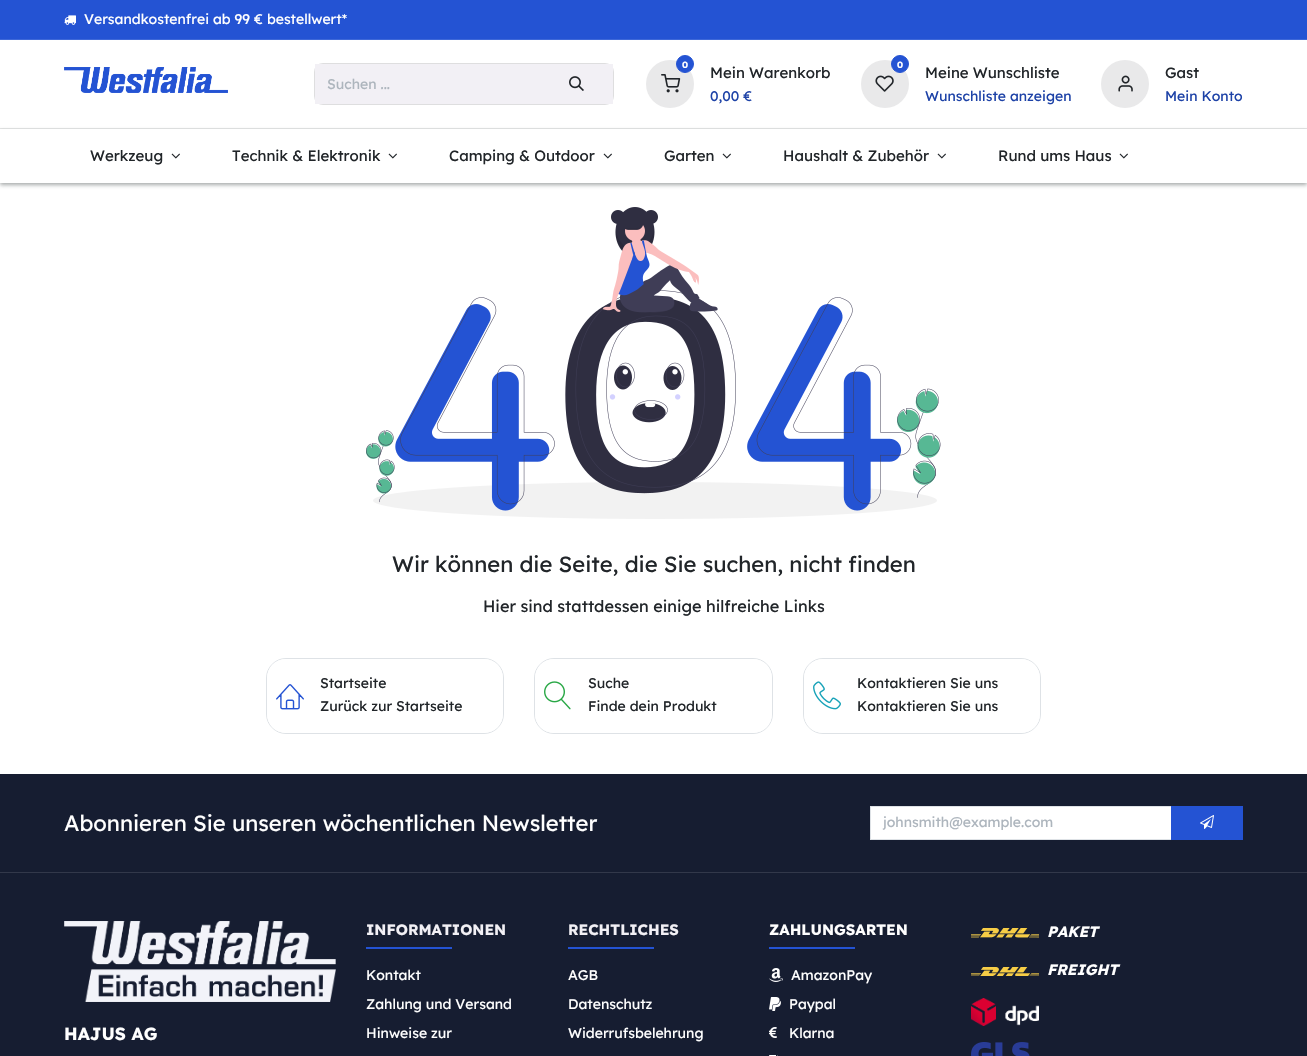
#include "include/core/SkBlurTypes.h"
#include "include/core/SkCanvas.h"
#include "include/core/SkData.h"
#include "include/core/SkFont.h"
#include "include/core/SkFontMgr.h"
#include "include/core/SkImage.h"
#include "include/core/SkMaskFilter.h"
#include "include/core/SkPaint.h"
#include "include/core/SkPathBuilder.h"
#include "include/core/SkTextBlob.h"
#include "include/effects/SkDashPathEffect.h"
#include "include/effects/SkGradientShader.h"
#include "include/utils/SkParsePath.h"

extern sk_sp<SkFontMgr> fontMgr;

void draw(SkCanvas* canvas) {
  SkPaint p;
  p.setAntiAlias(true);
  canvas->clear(SK_ColorWHITE);
  p.setColor(SkColorSetRGB(36, 83, 211));
  canvas->drawRect(SkRect::MakeLTRB(0, 0, 1307, 39), p);
  p.setColor(SkColorSetRGB(62, 104, 216));
  canvas->drawRect(SkRect::MakeLTRB(0, 39, 1307, 40), p);
  canvas->drawImageRect(SkImages::DeferredFromEncodedData(SkData::MakeFromFileName("images/1.png")), SkRect::MakeLTRB(64, 15, 76, 25), SkSamplingOptions());
  p.setColor(SkColorSetRGB(228, 229, 229));
  canvas->drawRect(SkRect::MakeLTRB(0, 128, 1307, 129), p);
  canvas->drawImageRect(SkImages::DeferredFromEncodedData(SkData::MakeFromFileName("images/2.png")), SkRect::MakeLTRB(64, 67, 228, 93), SkSamplingOptions());
  p.setStyle(SkPaint::kStroke_Style);
  p.setStrokeWidth(1);
  p.setColor(SkColorSetRGB(222, 222, 223));
  canvas->drawRoundRect(SkRect::MakeLTRB(314.5f, 63.5f, 613.5f, 104.5f), 8.5f, 8.5f, p);
  p.setStyle(SkPaint::kFill_Style);
  p.setColor(SkColorSetRGB(242, 240, 245));
  canvas->drawRect(SkRect::MakeLTRB(315, 64, 613, 104), p);
  canvas->drawImageRect(SkImages::DeferredFromEncodedData(SkData::MakeFromFileName("images/3.png")), SkRect::MakeLTRB(569, 76, 584, 91), SkSamplingOptions());
  p.setColor(SkColorSetRGB(233, 233, 234));
  canvas->drawCircle(670, 84, 24, p);
  canvas->drawImageRect(SkImages::DeferredFromEncodedData(SkData::MakeFromFileName("images/4.png")), SkRect::MakeLTRB(661, 74, 681, 93), SkSamplingOptions());
  p.setColor(SkColorSetRGB(36, 83, 211));
  canvas->drawCircle(685, 64, 8.5f, p);
  p.setStyle(SkPaint::kStroke_Style);
  canvas->drawCircle(685, 64, 8.5f, p);
  p.setStyle(SkPaint::kFill_Style);
  p.setColor(SkColorSetRGB(233, 233, 234));
  canvas->drawCircle(885, 84, 24, p);
  canvas->drawImageRect(SkImages::DeferredFromEncodedData(SkData::MakeFromFileName("images/5.png")), SkRect::MakeLTRB(875, 75, 894, 92), SkSamplingOptions());
  p.setColor(SkColorSetRGB(36, 83, 211));
  canvas->drawCircle(900, 64, 8.5f, p);
  p.setStyle(SkPaint::kStroke_Style);
  canvas->drawCircle(900, 64, 8.5f, p);
  p.setStyle(SkPaint::kFill_Style);
  p.setColor(SkColorSetRGB(233, 233, 234));
  canvas->drawCircle(1125, 84, 24, p);
  canvas->drawImageRect(SkImages::DeferredFromEncodedData(SkData::MakeFromFileName("images/6.png")), SkRect::MakeLTRB(1118, 75, 1133, 92), SkSamplingOptions());
  canvas->save();
  canvas->clipPath(SkPathBuilder(SkPathFillType::kEvenOdd).moveTo(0, 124).lineTo(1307, 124).lineTo(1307, 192).lineTo(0, 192).close().moveTo(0, 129).lineTo(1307, 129).lineTo(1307, 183).lineTo(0, 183).close().detach(), true);
  p.setColor(SkColorSetARGB(148, 101, 108, 108));
  p.setMaskFilter(SkMaskFilter::MakeBlur(kNormal_SkBlurStyle, 2));
  canvas->drawRect(SkRect::MakeLTRB(0, 131, 1307, 185), p);
  p.setMaskFilter(nullptr);
  canvas->restore();
  canvas->drawImageRect(SkImages::DeferredFromEncodedData(SkData::MakeFromFileName("images/7.png")), SkRect::MakeLTRB(171, 153, 180, 159), SkSamplingOptions());
  canvas->drawImageRect(SkImages::DeferredFromEncodedData(SkData::MakeFromFileName("images/7.png")), SkRect::MakeLTRB(388, 153, 397, 159), SkSamplingOptions());
  canvas->drawImageRect(SkImages::DeferredFromEncodedData(SkData::MakeFromFileName("images/7.png")), SkRect::MakeLTRB(603, 153, 612, 159), SkSamplingOptions());
  canvas->drawImageRect(SkImages::DeferredFromEncodedData(SkData::MakeFromFileName("images/7.png")), SkRect::MakeLTRB(722, 153, 731, 159), SkSamplingOptions());
  canvas->drawImageRect(SkImages::DeferredFromEncodedData(SkData::MakeFromFileName("images/7.png")), SkRect::MakeLTRB(937, 153, 946, 159), SkSamplingOptions());
  canvas->drawImageRect(SkImages::DeferredFromEncodedData(SkData::MakeFromFileName("images/7.png")), SkRect::MakeLTRB(1119, 153, 1128, 159), SkSamplingOptions());
  canvas->drawImageRect(SkImages::DeferredFromEncodedData(SkData::MakeFromFileName("images/8.png")), SkRect::MakeLTRB(366, 207, 941, 519), SkSamplingOptions());
  p.setStyle(SkPaint::kStroke_Style);
  p.setColor(SkColorSetRGB(222, 226, 230));
  canvas->drawRoundRect(SkRect::MakeLTRB(266.5f, 658.5f, 503.5f, 733.5f), 19.5f, 19.5f, p);
  p.setStyle(SkPaint::kFill_Style);
  p.setColor(SkColorSetARGB(230, 255, 255, 255));
  canvas->drawRoundRect(SkRect::MakeLTRB(267, 659, 503, 733), 19, 19, p);
  canvas->drawImageRect(SkImages::DeferredFromEncodedData(SkData::MakeFromFileName("images/9.png")), SkRect::MakeLTRB(276, 684, 304, 710), SkSamplingOptions());
  p.setStyle(SkPaint::kStroke_Style);
  p.setColor(SkColorSetRGB(222, 226, 230));
  canvas->drawRoundRect(SkRect::MakeLTRB(534.5f, 658.5f, 772.5f, 733.5f), 19.5f, 19.5f, p);
  p.setStyle(SkPaint::kFill_Style);
  p.setColor(SkColorSetARGB(230, 255, 255, 255));
  canvas->drawRoundRect(SkRect::MakeLTRB(535, 659, 772, 733), 19, 19, p);
  canvas->drawImageRect(SkImages::DeferredFromEncodedData(SkData::MakeFromFileName("images/10.png")), SkRect::MakeLTRB(544, 681, 571, 710), SkSamplingOptions());
  p.setStyle(SkPaint::kStroke_Style);
  p.setColor(SkColorSetRGB(222, 226, 230));
  canvas->drawRoundRect(SkRect::MakeLTRB(803.5f, 658.5f, 1040.5f, 733.5f), 19.5f, 19.5f, p);
  p.setStyle(SkPaint::kFill_Style);
  p.setColor(SkColorSetARGB(230, 255, 255, 255));
  canvas->drawRoundRect(SkRect::MakeLTRB(804, 659, 1040, 733), 19, 19, p);
  canvas->drawImageRect(SkImages::DeferredFromEncodedData(SkData::MakeFromFileName("images/11.png")), SkRect::MakeLTRB(813, 681, 841, 710), SkSamplingOptions());
  p.setColor(SkColorSetRGB(22, 29, 49));
  canvas->drawRect(SkRect::MakeLTRB(0, 774, 1307, 1056), p);
  p.setColor(SkColorSetRGB(50, 56, 74));
  canvas->drawRect(SkRect::MakeLTRB(0, 872, 1307, 873), p);
  p.setColor(SK_ColorWHITE);
  canvas->drawRect(SkRect::MakeLTRB(871, 807, 1171, 839), p);
  p.setStyle(SkPaint::kStroke_Style);
  p.setColor(SkColorSetRGB(222, 226, 230));
  canvas->drawRect(SkRect::MakeLTRB(870.5f, 806.5f, 1183.5f, 839.5f), p);
  p.setStyle(SkPaint::kFill_Style);
  p.setColor(SkColorSetRGB(36, 83, 211));
  canvas->drawRect(SkRect::MakeLTRB(1171, 806, 1243, 840), p);
  canvas->drawImageRect(SkImages::DeferredFromEncodedData(SkData::MakeFromFileName("images/12.png")), SkRect::MakeLTRB(1200, 815, 1214, 829), SkSamplingOptions());
  canvas->drawRect(SkRect::MakeLTRB(366, 947, 452, 949), p);
  canvas->drawRect(SkRect::MakeLTRB(568, 947, 654, 949), p);
  canvas->drawRect(SkRect::MakeLTRB(769, 947, 855, 949), p);
  canvas->drawImageRect(SkImages::DeferredFromEncodedData(SkData::MakeFromFileName("images/13.png")), SkRect::MakeLTRB(769, 968, 783, 982), SkSamplingOptions());
  canvas->drawImageRect(SkImages::DeferredFromEncodedData(SkData::MakeFromFileName("images/14.png")), SkRect::MakeLTRB(769, 997, 781, 1011), SkSamplingOptions());
  canvas->drawImageRect(SkImages::DeferredFromEncodedData(SkData::MakeFromFileName("images/15.png")), SkRect::MakeLTRB(769, 1027, 777, 1038), SkSamplingOptions());
  canvas->drawImageRect(SkImages::DeferredFromEncodedData(SkData::MakeFromFileName("images/16.png")), SkRect::MakeLTRB(769, 1055, 778, 1056), SkSamplingOptions());
  canvas->drawImageRect(SkImages::DeferredFromEncodedData(SkData::MakeFromFileName("images/17.png")), SkRect::MakeLTRB(971, 928, 1039, 938), SkSamplingOptions());
  canvas->drawImageRect(SkImages::DeferredFromEncodedData(SkData::MakeFromFileName("images/18.png")), SkRect::MakeLTRB(971, 967, 1039, 976), SkSamplingOptions());
  canvas->drawImageRect(SkImages::DeferredFromEncodedData(SkData::MakeFromFileName("images/19.png")), SkRect::MakeLTRB(971, 998, 1039, 1026), SkSamplingOptions());
  canvas->drawImageRect(SkImages::DeferredFromEncodedData(SkData::MakeFromFileName("images/20.png")), SkRect::MakeLTRB(971, 1042, 1030, 1056), SkSamplingOptions());
  canvas->drawImageRect(SkImages::DeferredFromEncodedData(SkData::MakeFromFileName("images/21.png")), SkRect::MakeLTRB(64, 921, 336, 1002), SkSamplingOptions());
  SkFont font1(fontMgr->matchFamilyStyle("Lexend Deca", SkFontStyle::Normal()), 14);
  font1.setSubpixel(true);
  p.setColor(SK_ColorWHITE);
  canvas->drawString("Versandkostenfrei ab 99 € bestellwert*", 84, 24, font1, p);
  p.setColor(SkColorSetRGB(173, 181, 189));
  canvas->drawString("Suchen ...", 327, 89, font1, p);
  SkFont font2(fontMgr->matchFamilyStyle("Lexend Deca", SkFontStyle::Bold()), 9);
  font2.setSubpixel(true);
  p.setColor(SK_ColorWHITE);
  canvas->drawString("0", 682, 68, font2, p);
  SkFont font3(fontMgr->matchFamilyStyle("Lexend Deca", SkFontStyle::Normal()), 15);
  font3.setSubpixel(true);
  p.setColor(SkColorSetRGB(33, 37, 41));
  canvas->drawString("Mein Warenkorb", 710, 78, font3, p);
  p.setColor(SkColorSetRGB(29, 66, 167));
  canvas->drawString("0,00 €", 710, 101, font1, p);
  p.setColor(SK_ColorWHITE);
  canvas->drawString("0", 897, 68, font2, p);
  p.setColor(SkColorSetRGB(33, 37, 41));
  canvas->drawString("Meine Wunschliste", 925, 78, font3, p);
  p.setColor(SkColorSetRGB(29, 66, 167));
  canvas->drawString("Wunschliste anzeigen", 925, 101, font1, p);
  p.setColor(SkColorSetRGB(33, 37, 41));
  canvas->drawString("Gast", 1165, 78, font3, p);
  p.setColor(SkColorSetRGB(29, 66, 167));
  canvas->drawString("Mein Konto", 1165, 101, font1, p);
  p.setColor(SkColorSetRGB(33, 37, 41));
  canvas->drawString("Werkzeug", 90, 161, font3, p);
  canvas->drawString("Technik & Elektronik", 232, 161, font3, p);
  canvas->drawString("Camping & Outdoor", 449, 161, font3, p);
  canvas->drawString("Garten", 664, 161, font3, p);
  canvas->drawString("Haushalt & Zubehör", 783, 161, font3, p);
  canvas->drawString("Rund ums Haus", 998, 161, font3, p);
  SkFont font4(fontMgr->matchFamilyStyle("Lexend Deca", SkFontStyle::Normal()), 22);
  font4.setSubpixel(true);
  canvas->drawString("Wir können die Seite, die Sie suchen, nicht finden", 392, 572, font4, p);
  SkFont font5(fontMgr->matchFamilyStyle("Lexend Deca", SkFontStyle::Normal()), 16.25f);
  font5.setSubpixel(true);
  canvas->drawString("Hier sind stattdessen einige hilfreiche Links", 483, 612, font5, p);
  canvas->drawString("Startseite", 320, 688, font1, p);
  canvas->drawString("Zurück zur Startseite", 320, 711, font1, p);
  canvas->drawString("Suche", 588, 688, font1, p);
  canvas->drawString("Finde dein Produkt", 588, 711, font1, p);
  canvas->drawString("Kontaktieren Sie uns", 857, 688, font1, p);
  canvas->drawString("Kontaktieren Sie uns", 857, 711, font1, p);
  p.setColor(SK_ColorWHITE);
  canvas->drawString("Abonnieren Sie unseren wöchentlichen Newsletter", 64, 831, font4, p);
  p.setColor(SkColorSetRGB(173, 181, 189));
  canvas->drawString("johnsmith@example.com", 883, 827, font1, p);
  SkFont font6(fontMgr->matchFamilyStyle("Lexend Deca", SkFontStyle::Bold()), 15);
  font6.setSubpixel(true);
  p.setColor(SkColorSetRGB(242, 240, 245));
  canvas->drawString("INFORMATIONEN", 366, 935, font6, p);
  p.setColor(SK_ColorWHITE);
  canvas->drawString("Kontakt", 366, 980, font1, p);
  canvas->drawString("Zahlung und Versand", 366, 1009, font1, p);
  canvas->drawString("Hinweise zur", 366, 1038, font1, p);
  p.setColor(SkColorSetRGB(242, 240, 245));
  canvas->drawString("RECHTLICHES", 568, 935, font6, p);
  p.setColor(SK_ColorWHITE);
  canvas->drawString("AGB", 568, 980, font1, p);
  canvas->drawString("Datenschutz", 568, 1009, font1, p);
  canvas->drawString("Widerrufsbelehrung", 568, 1038, font1, p);
  canvas->drawString("ZAHLUNGSARTEN", 769, 935, font6, p);
  canvas->drawString("AmazonPay", 791, 980, font1, p);
  canvas->drawString("Paypal", 789, 1009, font1, p);
  canvas->drawString("Klarna", 789, 1038, font1, p);
  SkFont font7(fontMgr->matchFamilyStyle("Lexend Deca", SkFontStyle::BoldItalic()), 15);
  font7.setSubpixel(true);
  canvas->drawString("PAKET", 1047, 937, font7, p);
  canvas->drawString("FREIGHT", 1047, 975, font7, p);
  SkFont font8(fontMgr->matchFamilyStyle("Lexend Deca", SkFontStyle::Bold()), 17.5f);
  font8.setSubpixel(true);
  canvas->drawString("HAJUS AG", 64, 1040, font8, p);
}
